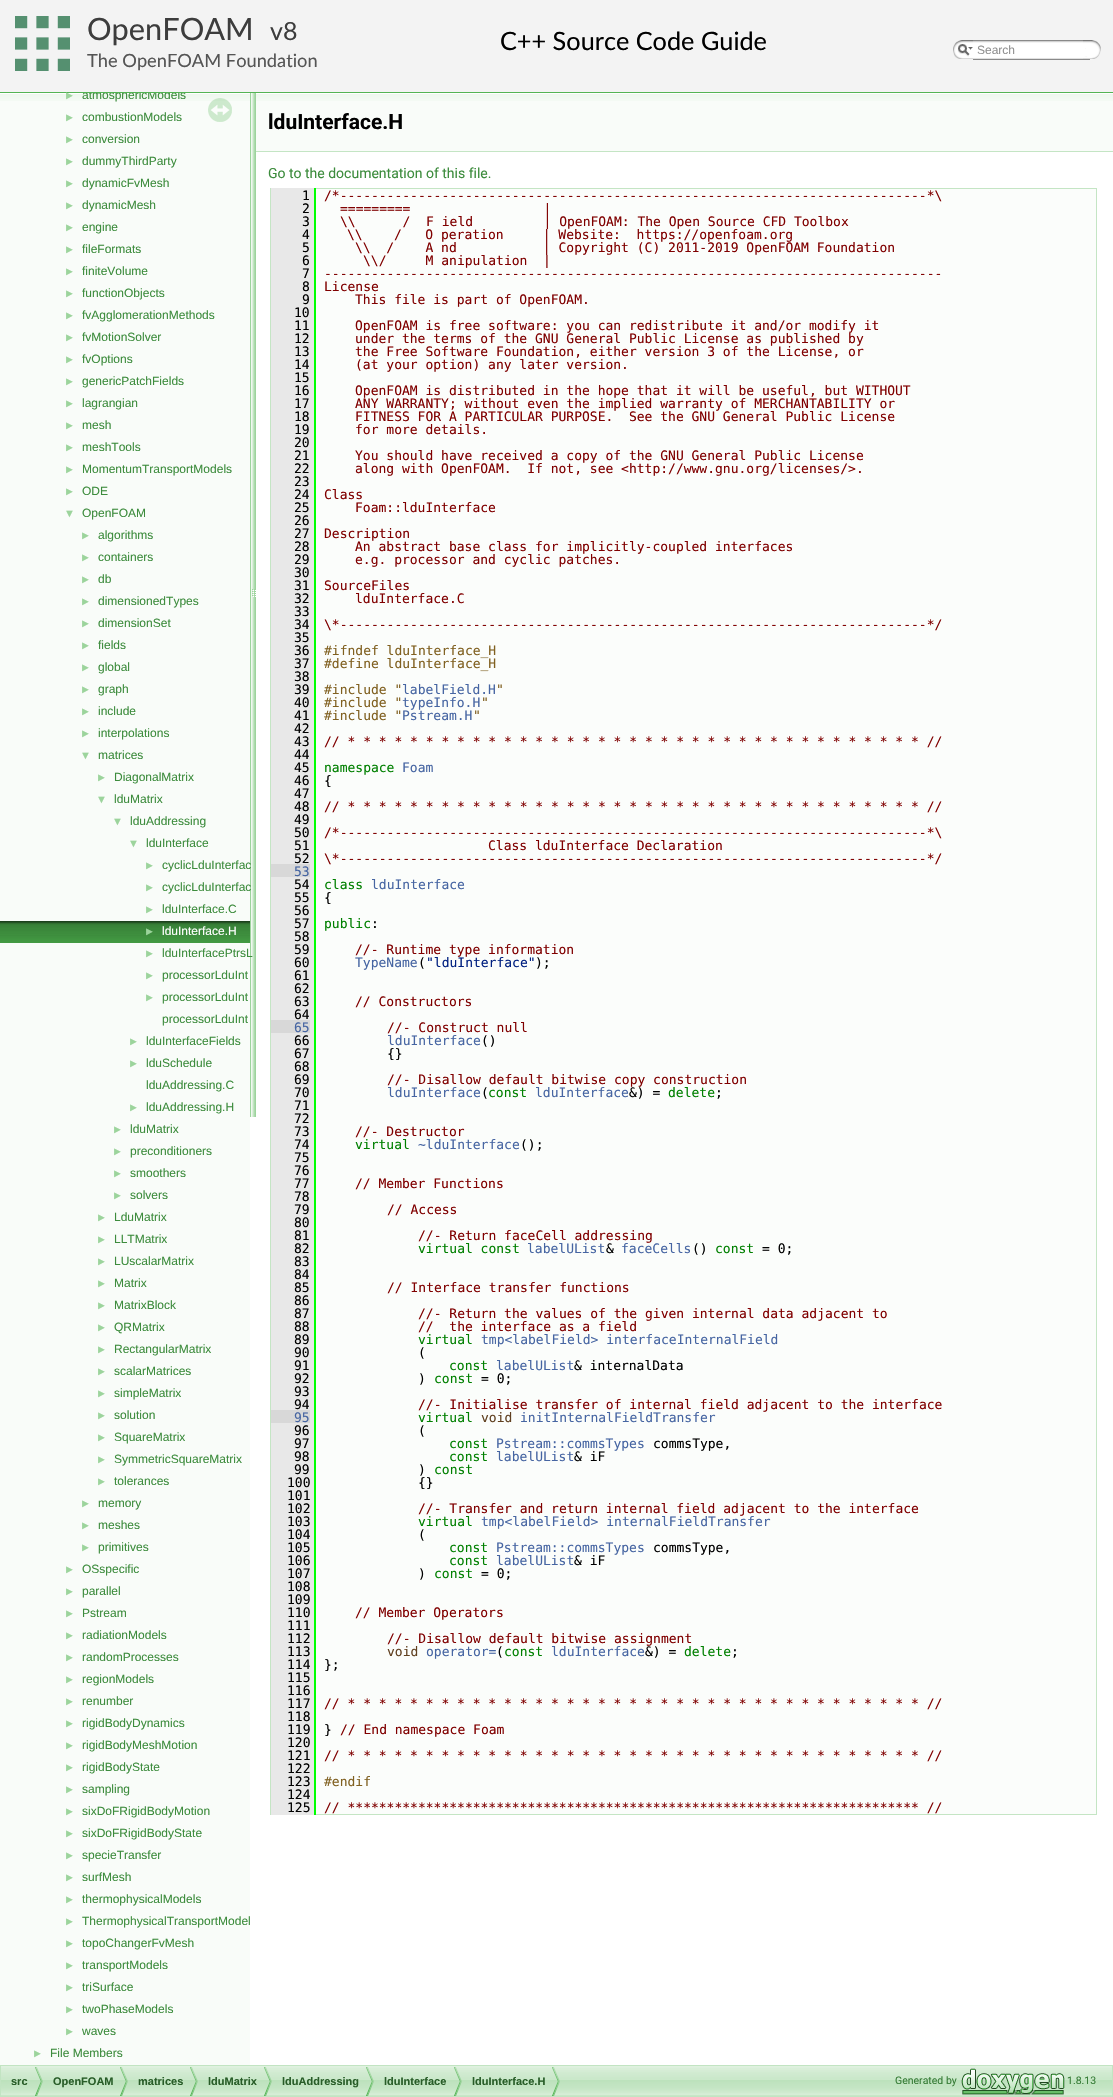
#include "include/core/SkBlurTypes.h"
#include "include/core/SkCanvas.h"
#include "include/core/SkData.h"
#include "include/core/SkFont.h"
#include "include/core/SkFontMgr.h"
#include "include/core/SkImage.h"
#include "include/core/SkMaskFilter.h"
#include "include/core/SkPaint.h"
#include "include/core/SkPathBuilder.h"
#include "include/core/SkTextBlob.h"
#include "include/effects/SkDashPathEffect.h"
#include "include/effects/SkGradientShader.h"
#include "include/utils/SkParsePath.h"

extern sk_sp<SkFontMgr> fontMgr;

void draw(SkCanvas* canvas) {
  SkPaint p;
  p.setAntiAlias(true);
  canvas->clear(SK_ColorWHITE);
  p.setColor(SkColorSetRGB(243, 243, 243));
  canvas->drawRect(SkRect::MakeLTRB(0, 0, 1113, 92), p);
  p.setColor(SkColorSetRGB(83, 180, 83));
  canvas->drawRect(SkRect::MakeLTRB(0, 92, 1113, 93), p);
  canvas->drawImageRect(SkImages::DeferredFromEncodedData(SkData::MakeFromFileName("images/1.png")), SkRect::MakeLTRB(15, 16, 70, 71), SkSamplingOptions());
  canvas->drawImageRect(SkImages::DeferredFromEncodedData(SkData::MakeFromFileName("images/2.png")), SkRect::MakeLTRB(953, 40, 973, 59), SkSamplingOptions());
  canvas->drawImageRect(SkImages::DeferredFromEncodedData(SkData::MakeFromFileName("images/3.png")), SkRect::MakeLTRB(958, 44, 973, 56), SkSamplingOptions());
  canvas->drawImageRect(SkImages::DeferredFromEncodedData(SkData::MakeFromFileName("images/4.png")), SkRect::MakeLTRB(973, 40, 1090, 60), SkSamplingOptions());
  canvas->drawImageRect(SkImages::DeferredFromEncodedData(SkData::MakeFromFileName("images/5.png")), SkRect::MakeLTRB(1083, 40, 1101, 59), SkSamplingOptions());
  p.setColor(SkColorSetRGB(249, 252, 249));
  canvas->drawRect(SkRect::MakeLTRB(0, 101, 250, 2065), p);
  canvas->drawImageRect(SkImages::DeferredFromEncodedData(SkData::MakeFromFileName("images/6.png")), SkRect::MakeLTRB(0, 93, 250, 101), SkSamplingOptions());
  canvas->drawImageRect(SkImages::DeferredFromEncodedData(SkData::MakeFromFileName("images/7.png")), SkRect::MakeLTRB(0, 921, 250, 943), SkSamplingOptions());
  canvas->drawImageRect(SkImages::DeferredFromEncodedData(SkData::MakeFromFileName("images/8.png")), SkRect::MakeLTRB(208, 98, 232, 122), SkSamplingOptions());
  canvas->drawImageRect(SkImages::DeferredFromEncodedData(SkData::MakeFromFileName("images/9.png")), SkRect::MakeLTRB(250, 93, 256, 1117), SkSamplingOptions());
  canvas->drawRect(SkRect::MakeLTRB(256, 101, 1113, 151), p);
  canvas->drawImageRect(SkImages::DeferredFromEncodedData(SkData::MakeFromFileName("images/10.png")), SkRect::MakeLTRB(256, 93, 1113, 101), SkSamplingOptions());
  p.setColor(SkColorSetRGB(196, 229, 196));
  canvas->drawRect(SkRect::MakeLTRB(256, 151, 1113, 152), p);
  p.setColor(SkColorSetRGB(251, 253, 251));
  canvas->drawRect(SkRect::MakeLTRB(316, 189, 1096, 1814), p);
  p.setStyle(SkPaint::kStroke_Style);
  p.setStrokeWidth(1);
  p.setColor(SkColorSetRGB(196, 229, 196));
  canvas->drawRect(SkRect::MakeLTRB(270.5f, 188.5f, 1096.5f, 1814.5f), p);
  p.setStyle(SkPaint::kFill_Style);
  p.setColor(SkColorSetRGB(232, 232, 232));
  canvas->drawRect(SkRect::MakeLTRB(271, 188, 314, 864), p);
  p.setColor(SkColorSetRGB(0, 255, 0));
  canvas->drawRect(SkRect::MakeLTRB(314, 188, 316, 1425), p);
  p.setColor(SkColorSetRGB(232, 232, 232));
  canvas->drawRect(SkRect::MakeLTRB(310, 864, 314, 877), p);
  p.setColor(SkColorSetRGB(216, 216, 216));
  canvas->drawRect(SkRect::MakeLTRB(271, 864, 310, 877), p);
  p.setColor(SkColorSetRGB(232, 232, 232));
  canvas->drawRect(SkRect::MakeLTRB(271, 877, 314, 1020), p);
  canvas->drawRect(SkRect::MakeLTRB(310, 1020, 314, 1033), p);
  p.setColor(SkColorSetRGB(216, 216, 216));
  canvas->drawRect(SkRect::MakeLTRB(271, 1020, 310, 1033), p);
  p.setColor(SkColorSetRGB(232, 232, 232));
  canvas->drawRect(SkRect::MakeLTRB(271, 1033, 314, 1410), p);
  canvas->drawRect(SkRect::MakeLTRB(310, 1410, 314, 1423), p);
  p.setColor(SkColorSetRGB(216, 216, 216));
  canvas->drawRect(SkRect::MakeLTRB(271, 1410, 310, 1423), p);
  p.setColor(SkColorSetRGB(232, 232, 232));
  canvas->drawRect(SkRect::MakeLTRB(271, 1423, 314, 1815), p);
  p.setColor(SkColorSetRGB(0, 255, 0));
  canvas->drawRect(SkRect::MakeLTRB(314, 1423, 316, 1815), p);
  canvas->drawImageRect(SkImages::DeferredFromEncodedData(SkData::MakeFromFileName("images/11.png")), SkRect::MakeLTRB(1, 2066, 1112, 2096), SkSamplingOptions());
  p.setStyle(SkPaint::kStroke_Style);
  p.setColor(SkColorSetRGB(194, 228, 194));
  canvas->drawRect(SkRect::MakeLTRB(0.5f, 2065.5f, 1112.5f, 2096.5f), p);
  canvas->drawImageRect(SkImages::DeferredFromEncodedData(SkData::MakeFromFileName("images/12.png")), SkRect::MakeLTRB(35, 2067, 43, 2096), SkSamplingOptions());
  canvas->drawImageRect(SkImages::DeferredFromEncodedData(SkData::MakeFromFileName("images/12.png")), SkRect::MakeLTRB(120, 2067, 128, 2096), SkSamplingOptions());
  canvas->drawImageRect(SkImages::DeferredFromEncodedData(SkData::MakeFromFileName("images/12.png")), SkRect::MakeLTRB(190, 2067, 198, 2096), SkSamplingOptions());
  canvas->drawImageRect(SkImages::DeferredFromEncodedData(SkData::MakeFromFileName("images/12.png")), SkRect::MakeLTRB(264, 2067, 272, 2096), SkSamplingOptions());
  canvas->drawImageRect(SkImages::DeferredFromEncodedData(SkData::MakeFromFileName("images/12.png")), SkRect::MakeLTRB(366, 2067, 374, 2096), SkSamplingOptions());
  canvas->drawImageRect(SkImages::DeferredFromEncodedData(SkData::MakeFromFileName("images/12.png")), SkRect::MakeLTRB(454, 2067, 462, 2096), SkSamplingOptions());
  canvas->drawImageRect(SkImages::DeferredFromEncodedData(SkData::MakeFromFileName("images/12.png")), SkRect::MakeLTRB(552, 2067, 560, 2096), SkSamplingOptions());
  canvas->drawImageRect(SkImages::DeferredFromEncodedData(SkData::MakeFromFileName("images/13.png")), SkRect::MakeLTRB(961, 2068, 1065, 2095), SkSamplingOptions());
  SkFont font1(fontMgr->matchFamilyStyle("Lato", SkFontStyle::Normal()), 30.75f);
  font1.setSubpixel(true);
  p.setStyle(SkPaint::kFill_Style);
  p.setColor(SkColorSetRGB(61, 61, 61));
  canvas->drawString("OpenFOAM", 87, 40, font1, p);
  SkFont font2(fontMgr->matchFamilyStyle("Lato", SkFontStyle::Normal()), 25);
  font2.setSubpixel(true);
  canvas->drawString("v8", 270, 40, font2, p);
  SkFont font3(fontMgr->matchFamilyStyle("Lato", SkFontStyle::Normal()), 18.25f);
  font3.setSubpixel(true);
  p.setColor(SkColorSetRGB(85, 85, 85));
  canvas->drawString("The OpenFOAM Foundation", 87, 67, font3, p);
  SkFont font4(fontMgr->matchFamilyStyle("Liberation Sans", SkFontStyle::Normal()), 12);
  font4.setSubpixel(true);
  p.setColor(SkColorSetRGB(144, 144, 144));
  canvas->drawString("Search", 977, 54, font4, p);
  SkFont font5(fontMgr->matchFamilyStyle("Lato", SkFontStyle::Normal()), 25.25f);
  font5.setSubpixel(true);
  p.setColor(SK_ColorBLACK);
  canvas->drawString("C++ Source Code Guide", 500, 50, font5, p);
  SkFont font6(fontMgr->matchFamilyStyle("Liberation Sans", SkFontStyle::Normal()), 11);
  font6.setSubpixel(true);
  p.setColor(SkColorSetRGB(156, 212, 156));
  canvas->drawString("►", 64, 99, font6, p);
  canvas->save();
  canvas->clipRect(SkRect::MakeLTRB(0, 93, 250, 2065));
  p.setColor(SkColorSetRGB(61, 140, 61));
  canvas->drawString("atmosphericModels", 82, 99, font4, p);
  canvas->restore();
  p.setColor(SkColorSetRGB(156, 212, 156));
  canvas->drawString("►", 64, 121, font6, p);
  p.setColor(SkColorSetRGB(61, 140, 61));
  canvas->drawString("combustionModels", 82, 121, font4, p);
  p.setColor(SkColorSetRGB(156, 212, 156));
  canvas->drawString("►", 64, 143, font6, p);
  p.setColor(SkColorSetRGB(61, 140, 61));
  canvas->drawString("conversion", 82, 143, font4, p);
  p.setColor(SkColorSetRGB(156, 212, 156));
  canvas->drawString("►", 64, 165, font6, p);
  p.setColor(SkColorSetRGB(61, 140, 61));
  canvas->drawString("dummyThirdParty", 82, 165, font4, p);
  p.setColor(SkColorSetRGB(156, 212, 156));
  canvas->drawString("►", 64, 187, font6, p);
  p.setColor(SkColorSetRGB(61, 140, 61));
  canvas->drawString("dynamicFvMesh", 82, 187, font4, p);
  p.setColor(SkColorSetRGB(156, 212, 156));
  canvas->drawString("►", 64, 209, font6, p);
  p.setColor(SkColorSetRGB(61, 140, 61));
  canvas->drawString("dynamicMesh", 82, 209, font4, p);
  p.setColor(SkColorSetRGB(156, 212, 156));
  canvas->drawString("►", 64, 231, font6, p);
  p.setColor(SkColorSetRGB(61, 140, 61));
  canvas->drawString("engine", 82, 231, font4, p);
  p.setColor(SkColorSetRGB(156, 212, 156));
  canvas->drawString("►", 64, 253, font6, p);
  p.setColor(SkColorSetRGB(61, 140, 61));
  canvas->drawString("fileFormats", 82, 253, font4, p);
  p.setColor(SkColorSetRGB(156, 212, 156));
  canvas->drawString("►", 64, 275, font6, p);
  p.setColor(SkColorSetRGB(61, 140, 61));
  canvas->drawString("finiteVolume", 82, 275, font4, p);
  p.setColor(SkColorSetRGB(156, 212, 156));
  canvas->drawString("►", 64, 297, font6, p);
  p.setColor(SkColorSetRGB(61, 140, 61));
  canvas->drawString("functionObjects", 82, 297, font4, p);
  p.setColor(SkColorSetRGB(156, 212, 156));
  canvas->drawString("►", 64, 319, font6, p);
  p.setColor(SkColorSetRGB(61, 140, 61));
  canvas->drawString("fvAgglomerationMethods", 82, 319, font4, p);
  p.setColor(SkColorSetRGB(156, 212, 156));
  canvas->drawString("►", 64, 341, font6, p);
  p.setColor(SkColorSetRGB(61, 140, 61));
  canvas->drawString("fvMotionSolver", 82, 341, font4, p);
  p.setColor(SkColorSetRGB(156, 212, 156));
  canvas->drawString("►", 64, 363, font6, p);
  p.setColor(SkColorSetRGB(61, 140, 61));
  canvas->drawString("fvOptions", 82, 363, font4, p);
  p.setColor(SkColorSetRGB(156, 212, 156));
  canvas->drawString("►", 64, 385, font6, p);
  p.setColor(SkColorSetRGB(61, 140, 61));
  canvas->drawString("genericPatchFields", 82, 385, font4, p);
  p.setColor(SkColorSetRGB(156, 212, 156));
  canvas->drawString("►", 64, 407, font6, p);
  p.setColor(SkColorSetRGB(61, 140, 61));
  canvas->drawString("lagrangian", 82, 407, font4, p);
  p.setColor(SkColorSetRGB(156, 212, 156));
  canvas->drawString("►", 64, 429, font6, p);
  p.setColor(SkColorSetRGB(61, 140, 61));
  canvas->drawString("mesh", 82, 429, font4, p);
  p.setColor(SkColorSetRGB(156, 212, 156));
  canvas->drawString("►", 64, 451, font6, p);
  p.setColor(SkColorSetRGB(61, 140, 61));
  canvas->drawString("meshTools", 82, 451, font4, p);
  p.setColor(SkColorSetRGB(156, 212, 156));
  canvas->drawString("►", 64, 473, font6, p);
  p.setColor(SkColorSetRGB(61, 140, 61));
  canvas->drawString("MomentumTransportModels", 82, 473, font4, p);
  p.setColor(SkColorSetRGB(156, 212, 156));
  canvas->drawString("►", 64, 495, font6, p);
  p.setColor(SkColorSetRGB(61, 140, 61));
  canvas->drawString("ODE", 82, 495, font4, p);
  p.setColor(SkColorSetRGB(156, 212, 156));
  canvas->drawString("▼", 64, 517, font6, p);
  p.setColor(SkColorSetRGB(61, 140, 61));
  canvas->drawString("OpenFOAM", 82, 517, font4, p);
  p.setColor(SkColorSetRGB(156, 212, 156));
  canvas->drawString("►", 80, 539, font6, p);
  p.setColor(SkColorSetRGB(61, 140, 61));
  canvas->drawString("algorithms", 98, 539, font4, p);
  p.setColor(SkColorSetRGB(156, 212, 156));
  canvas->drawString("►", 80, 561, font6, p);
  p.setColor(SkColorSetRGB(61, 140, 61));
  canvas->drawString("containers", 98, 561, font4, p);
  p.setColor(SkColorSetRGB(156, 212, 156));
  canvas->drawString("►", 80, 583, font6, p);
  p.setColor(SkColorSetRGB(61, 140, 61));
  canvas->drawString("db", 98, 583, font4, p);
  p.setColor(SkColorSetRGB(156, 212, 156));
  canvas->drawString("►", 80, 605, font6, p);
  p.setColor(SkColorSetRGB(61, 140, 61));
  canvas->drawString("dimensionedTypes", 98, 605, font4, p);
  p.setColor(SkColorSetRGB(156, 212, 156));
  canvas->drawString("►", 80, 627, font6, p);
  p.setColor(SkColorSetRGB(61, 140, 61));
  canvas->drawString("dimensionSet", 98, 627, font4, p);
  p.setColor(SkColorSetRGB(156, 212, 156));
  canvas->drawString("►", 80, 649, font6, p);
  p.setColor(SkColorSetRGB(61, 140, 61));
  canvas->drawString("fields", 98, 649, font4, p);
  p.setColor(SkColorSetRGB(156, 212, 156));
  canvas->drawString("►", 80, 671, font6, p);
  p.setColor(SkColorSetRGB(61, 140, 61));
  canvas->drawString("global", 98, 671, font4, p);
  p.setColor(SkColorSetRGB(156, 212, 156));
  canvas->drawString("►", 80, 693, font6, p);
  p.setColor(SkColorSetRGB(61, 140, 61));
  canvas->drawString("graph", 98, 693, font4, p);
  p.setColor(SkColorSetRGB(156, 212, 156));
  canvas->drawString("►", 80, 715, font6, p);
  p.setColor(SkColorSetRGB(61, 140, 61));
  canvas->drawString("include", 98, 715, font4, p);
  p.setColor(SkColorSetRGB(156, 212, 156));
  canvas->drawString("►", 80, 737, font6, p);
  p.setColor(SkColorSetRGB(61, 140, 61));
  canvas->drawString("interpolations", 98, 737, font4, p);
  p.setColor(SkColorSetRGB(156, 212, 156));
  canvas->drawString("▼", 80, 759, font6, p);
  p.setColor(SkColorSetRGB(61, 140, 61));
  canvas->drawString("matrices", 98, 759, font4, p);
  p.setColor(SkColorSetRGB(156, 212, 156));
  canvas->drawString("►", 96, 781, font6, p);
  p.setColor(SkColorSetRGB(61, 140, 61));
  canvas->drawString("DiagonalMatrix", 114, 781, font4, p);
  p.setColor(SkColorSetRGB(156, 212, 156));
  canvas->drawString("▼", 96, 803, font6, p);
  p.setColor(SkColorSetRGB(61, 140, 61));
  canvas->drawString("lduMatrix", 114, 803, font4, p);
  p.setColor(SkColorSetRGB(156, 212, 156));
  canvas->drawString("▼", 112, 825, font6, p);
  p.setColor(SkColorSetRGB(61, 140, 61));
  canvas->drawString("lduAddressing", 130, 825, font4, p);
  p.setColor(SkColorSetRGB(156, 212, 156));
  canvas->drawString("▼", 128, 847, font6, p);
  p.setColor(SkColorSetRGB(61, 140, 61));
  canvas->drawString("lduInterface", 146, 847, font4, p);
  p.setColor(SkColorSetRGB(156, 212, 156));
  canvas->drawString("►", 144, 869, font6, p);
  p.setColor(SkColorSetRGB(61, 140, 61));
  canvas->drawString("cyclicLduInterfac", 162, 869, font4, p);
  p.setColor(SkColorSetRGB(156, 212, 156));
  canvas->drawString("►", 144, 891, font6, p);
  p.setColor(SkColorSetRGB(61, 140, 61));
  canvas->drawString("cyclicLduInterfac", 162, 891, font4, p);
  p.setColor(SkColorSetRGB(156, 212, 156));
  canvas->drawString("►", 144, 913, font6, p);
  p.setColor(SkColorSetRGB(61, 140, 61));
  canvas->drawString("lduInterface.C", 162, 913, font4, p);
  p.setColor(SkColorSetRGB(156, 212, 156));
  canvas->drawString("►", 144, 935, font6, p);
  p.setColor(SK_ColorWHITE);
  canvas->drawString("lduInterface.H", 162, 935, font4, p);
  p.setColor(SkColorSetRGB(156, 212, 156));
  canvas->drawString("►", 144, 957, font6, p);
  p.setColor(SkColorSetRGB(61, 140, 61));
  canvas->drawString("lduInterfacePtrsL", 162, 957, font4, p);
  p.setColor(SkColorSetRGB(156, 212, 156));
  canvas->drawString("►", 144, 979, font6, p);
  p.setColor(SkColorSetRGB(61, 140, 61));
  canvas->drawString("processorLduInt", 162, 979, font4, p);
  p.setColor(SkColorSetRGB(156, 212, 156));
  canvas->drawString("►", 144, 1001, font6, p);
  p.setColor(SkColorSetRGB(61, 140, 61));
  canvas->drawString("processorLduInt", 162, 1001, font4, p);
  canvas->drawString("processorLduInt", 162, 1023, font4, p);
  p.setColor(SkColorSetRGB(156, 212, 156));
  canvas->drawString("►", 128, 1045, font6, p);
  p.setColor(SkColorSetRGB(61, 140, 61));
  canvas->drawString("lduInterfaceFields", 146, 1045, font4, p);
  p.setColor(SkColorSetRGB(156, 212, 156));
  canvas->drawString("►", 128, 1067, font6, p);
  p.setColor(SkColorSetRGB(61, 140, 61));
  canvas->drawString("lduSchedule", 146, 1067, font4, p);
  canvas->drawString("lduAddressing.C", 146, 1089, font4, p);
  p.setColor(SkColorSetRGB(156, 212, 156));
  canvas->drawString("►", 128, 1111, font6, p);
  p.setColor(SkColorSetRGB(61, 140, 61));
  canvas->drawString("lduAddressing.H", 146, 1111, font4, p);
  p.setColor(SkColorSetRGB(156, 212, 156));
  canvas->drawString("►", 112, 1133, font6, p);
  p.setColor(SkColorSetRGB(61, 140, 61));
  canvas->drawString("lduMatrix", 130, 1133, font4, p);
  p.setColor(SkColorSetRGB(156, 212, 156));
  canvas->drawString("►", 112, 1155, font6, p);
  p.setColor(SkColorSetRGB(61, 140, 61));
  canvas->drawString("preconditioners", 130, 1155, font4, p);
  p.setColor(SkColorSetRGB(156, 212, 156));
  canvas->drawString("►", 112, 1177, font6, p);
  p.setColor(SkColorSetRGB(61, 140, 61));
  canvas->drawString("smoothers", 130, 1177, font4, p);
  p.setColor(SkColorSetRGB(156, 212, 156));
  canvas->drawString("►", 112, 1199, font6, p);
  p.setColor(SkColorSetRGB(61, 140, 61));
  canvas->drawString("solvers", 130, 1199, font4, p);
  p.setColor(SkColorSetRGB(156, 212, 156));
  canvas->drawString("►", 96, 1221, font6, p);
  p.setColor(SkColorSetRGB(61, 140, 61));
  canvas->drawString("LduMatrix", 114, 1221, font4, p);
  p.setColor(SkColorSetRGB(156, 212, 156));
  canvas->drawString("►", 96, 1243, font6, p);
  p.setColor(SkColorSetRGB(61, 140, 61));
  canvas->drawString("LLTMatrix", 114, 1243, font4, p);
  p.setColor(SkColorSetRGB(156, 212, 156));
  canvas->drawString("►", 96, 1265, font6, p);
  p.setColor(SkColorSetRGB(61, 140, 61));
  canvas->drawString("LUscalarMatrix", 114, 1265, font4, p);
  p.setColor(SkColorSetRGB(156, 212, 156));
  canvas->drawString("►", 96, 1287, font6, p);
  p.setColor(SkColorSetRGB(61, 140, 61));
  canvas->drawString("Matrix", 114, 1287, font4, p);
  p.setColor(SkColorSetRGB(156, 212, 156));
  canvas->drawString("►", 96, 1309, font6, p);
  p.setColor(SkColorSetRGB(61, 140, 61));
  canvas->drawString("MatrixBlock", 114, 1309, font4, p);
  p.setColor(SkColorSetRGB(156, 212, 156));
  canvas->drawString("►", 96, 1331, font6, p);
  p.setColor(SkColorSetRGB(61, 140, 61));
  canvas->drawString("QRMatrix", 114, 1331, font4, p);
  p.setColor(SkColorSetRGB(156, 212, 156));
  canvas->drawString("►", 96, 1353, font6, p);
  p.setColor(SkColorSetRGB(61, 140, 61));
  canvas->drawString("RectangularMatrix", 114, 1353, font4, p);
  p.setColor(SkColorSetRGB(156, 212, 156));
  canvas->drawString("►", 96, 1375, font6, p);
  p.setColor(SkColorSetRGB(61, 140, 61));
  canvas->drawString("scalarMatrices", 114, 1375, font4, p);
  p.setColor(SkColorSetRGB(156, 212, 156));
  canvas->drawString("►", 96, 1397, font6, p);
  p.setColor(SkColorSetRGB(61, 140, 61));
  canvas->drawString("simpleMatrix", 114, 1397, font4, p);
  p.setColor(SkColorSetRGB(156, 212, 156));
  canvas->drawString("►", 96, 1419, font6, p);
  p.setColor(SkColorSetRGB(61, 140, 61));
  canvas->drawString("solution", 114, 1419, font4, p);
  p.setColor(SkColorSetRGB(156, 212, 156));
  canvas->drawString("►", 96, 1441, font6, p);
  p.setColor(SkColorSetRGB(61, 140, 61));
  canvas->drawString("SquareMatrix", 114, 1441, font4, p);
  p.setColor(SkColorSetRGB(156, 212, 156));
  canvas->drawString("►", 96, 1463, font6, p);
  p.setColor(SkColorSetRGB(61, 140, 61));
  canvas->drawString("SymmetricSquareMatrix", 114, 1463, font4, p);
  p.setColor(SkColorSetRGB(156, 212, 156));
  canvas->drawString("►", 96, 1485, font6, p);
  p.setColor(SkColorSetRGB(61, 140, 61));
  canvas->drawString("tolerances", 114, 1485, font4, p);
  p.setColor(SkColorSetRGB(156, 212, 156));
  canvas->drawString("►", 80, 1507, font6, p);
  p.setColor(SkColorSetRGB(61, 140, 61));
  canvas->drawString("memory", 98, 1507, font4, p);
  p.setColor(SkColorSetRGB(156, 212, 156));
  canvas->drawString("►", 80, 1529, font6, p);
  p.setColor(SkColorSetRGB(61, 140, 61));
  canvas->drawString("meshes", 98, 1529, font4, p);
  p.setColor(SkColorSetRGB(156, 212, 156));
  canvas->drawString("►", 80, 1551, font6, p);
  p.setColor(SkColorSetRGB(61, 140, 61));
  canvas->drawString("primitives", 98, 1551, font4, p);
  p.setColor(SkColorSetRGB(156, 212, 156));
  canvas->drawString("►", 64, 1573, font6, p);
  p.setColor(SkColorSetRGB(61, 140, 61));
  canvas->drawString("OSspecific", 82, 1573, font4, p);
  p.setColor(SkColorSetRGB(156, 212, 156));
  canvas->drawString("►", 64, 1595, font6, p);
  p.setColor(SkColorSetRGB(61, 140, 61));
  canvas->drawString("parallel", 82, 1595, font4, p);
  p.setColor(SkColorSetRGB(156, 212, 156));
  canvas->drawString("►", 64, 1617, font6, p);
  p.setColor(SkColorSetRGB(61, 140, 61));
  canvas->drawString("Pstream", 82, 1617, font4, p);
  p.setColor(SkColorSetRGB(156, 212, 156));
  canvas->drawString("►", 64, 1639, font6, p);
  p.setColor(SkColorSetRGB(61, 140, 61));
  canvas->drawString("radiationModels", 82, 1639, font4, p);
  p.setColor(SkColorSetRGB(156, 212, 156));
  canvas->drawString("►", 64, 1661, font6, p);
  p.setColor(SkColorSetRGB(61, 140, 61));
  canvas->drawString("randomProcesses", 82, 1661, font4, p);
  p.setColor(SkColorSetRGB(156, 212, 156));
  canvas->drawString("►", 64, 1683, font6, p);
  p.setColor(SkColorSetRGB(61, 140, 61));
  canvas->drawString("regionModels", 82, 1683, font4, p);
  p.setColor(SkColorSetRGB(156, 212, 156));
  canvas->drawString("►", 64, 1705, font6, p);
  p.setColor(SkColorSetRGB(61, 140, 61));
  canvas->drawString("renumber", 82, 1705, font4, p);
  p.setColor(SkColorSetRGB(156, 212, 156));
  canvas->drawString("►", 64, 1727, font6, p);
  p.setColor(SkColorSetRGB(61, 140, 61));
  canvas->drawString("rigidBodyDynamics", 82, 1727, font4, p);
  p.setColor(SkColorSetRGB(156, 212, 156));
  canvas->drawString("►", 64, 1749, font6, p);
  p.setColor(SkColorSetRGB(61, 140, 61));
  canvas->drawString("rigidBodyMeshMotion", 82, 1749, font4, p);
  p.setColor(SkColorSetRGB(156, 212, 156));
  canvas->drawString("►", 64, 1771, font6, p);
  p.setColor(SkColorSetRGB(61, 140, 61));
  canvas->drawString("rigidBodyState", 82, 1771, font4, p);
  p.setColor(SkColorSetRGB(156, 212, 156));
  canvas->drawString("►", 64, 1793, font6, p);
  p.setColor(SkColorSetRGB(61, 140, 61));
  canvas->drawString("sampling", 82, 1793, font4, p);
  p.setColor(SkColorSetRGB(156, 212, 156));
  canvas->drawString("►", 64, 1815, font6, p);
  p.setColor(SkColorSetRGB(61, 140, 61));
  canvas->drawString("sixDoFRigidBodyMotion", 82, 1815, font4, p);
  p.setColor(SkColorSetRGB(156, 212, 156));
  canvas->drawString("►", 64, 1837, font6, p);
  p.setColor(SkColorSetRGB(61, 140, 61));
  canvas->drawString("sixDoFRigidBodyState", 82, 1837, font4, p);
  p.setColor(SkColorSetRGB(156, 212, 156));
  canvas->drawString("►", 64, 1859, font6, p);
  p.setColor(SkColorSetRGB(61, 140, 61));
  canvas->drawString("specieTransfer", 82, 1859, font4, p);
  p.setColor(SkColorSetRGB(156, 212, 156));
  canvas->drawString("►", 64, 1881, font6, p);
  p.setColor(SkColorSetRGB(61, 140, 61));
  canvas->drawString("surfMesh", 82, 1881, font4, p);
  p.setColor(SkColorSetRGB(156, 212, 156));
  canvas->drawString("►", 64, 1903, font6, p);
  p.setColor(SkColorSetRGB(61, 140, 61));
  canvas->drawString("thermophysicalModels", 82, 1903, font4, p);
  p.setColor(SkColorSetRGB(156, 212, 156));
  canvas->drawString("►", 64, 1925, font6, p);
  p.setColor(SkColorSetRGB(61, 140, 61));
  canvas->drawString("ThermophysicalTransportModel", 82, 1925, font4, p);
  p.setColor(SkColorSetRGB(156, 212, 156));
  canvas->drawString("►", 64, 1947, font6, p);
  p.setColor(SkColorSetRGB(61, 140, 61));
  canvas->drawString("topoChangerFvMesh", 82, 1947, font4, p);
  p.setColor(SkColorSetRGB(156, 212, 156));
  canvas->drawString("►", 64, 1969, font6, p);
  p.setColor(SkColorSetRGB(61, 140, 61));
  canvas->drawString("transportModels", 82, 1969, font4, p);
  p.setColor(SkColorSetRGB(156, 212, 156));
  canvas->drawString("►", 64, 1991, font6, p);
  p.setColor(SkColorSetRGB(61, 140, 61));
  canvas->drawString("triSurface", 82, 1991, font4, p);
  p.setColor(SkColorSetRGB(156, 212, 156));
  canvas->drawString("►", 64, 2013, font6, p);
  p.setColor(SkColorSetRGB(61, 140, 61));
  canvas->drawString("twoPhaseModels", 82, 2013, font4, p);
  p.setColor(SkColorSetRGB(156, 212, 156));
  canvas->drawString("►", 64, 2035, font6, p);
  p.setColor(SkColorSetRGB(61, 140, 61));
  canvas->drawString("waves", 82, 2035, font4, p);
  p.setColor(SkColorSetRGB(156, 212, 156));
  canvas->drawString("►", 32, 2057, font6, p);
  p.setColor(SkColorSetRGB(61, 140, 61));
  canvas->drawString("File Members", 50, 2057, font4, p);
  SkFont font7(fontMgr->matchFamilyStyle("Roboto", SkFontStyle::Bold()), 21);
  font7.setSubpixel(true);
  p.setColor(SK_ColorBLACK);
  canvas->drawString("lduInterface.H", 268, 129, font7, p);
  SkFont font8(fontMgr->matchFamilyStyle("Roboto", SkFontStyle::Normal()), 14);
  font8.setSubpixel(true);
  p.setColor(SkColorSetRGB(61, 140, 61));
  canvas->drawString("Go to the documentation of this file.", 268, 178, font8, p);
  SkFont font9(fontMgr->matchFamilyStyle("DejaVu Sans Mono", SkFontStyle::Normal()), 13);
  font9.setSubpixel(true);
  p.setColor(SK_ColorBLACK);
  canvas->drawString("1", 302, 200, font9, p);
  p.setColor(SkColorSetRGB(128, 0, 0));
  canvas->drawString("/*---------------------------------------------------------------------------*\\", 324, 200, font9, p);
  p.setColor(SK_ColorBLACK);
  canvas->drawString("2", 302, 213, font9, p);
  p.setColor(SkColorSetRGB(128, 0, 0));
  canvas->drawString("=========                 |", 340, 213, font9, p);
  p.setColor(SK_ColorBLACK);
  canvas->drawString("3", 302, 226, font9, p);
  p.setColor(SkColorSetRGB(128, 0, 0));
  canvas->drawString("\\\\      /  F ield         | OpenFOAM: The Open Source CFD Toolbox", 340, 226, font9, p);
  p.setColor(SK_ColorBLACK);
  canvas->drawString("4", 302, 239, font9, p);
  p.setColor(SkColorSetRGB(128, 0, 0));
  canvas->drawString("\\\\    /   O peration     | Website:  https://openfoam.org", 347, 239, font9, p);
  p.setColor(SK_ColorBLACK);
  canvas->drawString("5", 302, 252, font9, p);
  p.setColor(SkColorSetRGB(128, 0, 0));
  canvas->drawString("\\\\  /    A nd           | Copyright (C) 2011-2019 OpenFOAM Foundation", 355, 252, font9, p);
  p.setColor(SK_ColorBLACK);
  canvas->drawString("6", 302, 265, font9, p);
  p.setColor(SkColorSetRGB(128, 0, 0));
  canvas->drawString("\\\\/     M anipulation  |", 363, 265, font9, p);
  p.setColor(SK_ColorBLACK);
  canvas->drawString("7", 302, 278, font9, p);
  p.setColor(SkColorSetRGB(128, 0, 0));
  canvas->drawString("-------------------------------------------------------------------------------", 324, 278, font9, p);
  p.setColor(SK_ColorBLACK);
  canvas->drawString("8", 302, 291, font9, p);
  p.setColor(SkColorSetRGB(128, 0, 0));
  canvas->drawString("License", 324, 291, font9, p);
  p.setColor(SK_ColorBLACK);
  canvas->drawString("9", 302, 304, font9, p);
  p.setColor(SkColorSetRGB(128, 0, 0));
  canvas->drawString("This file is part of OpenFOAM.", 355, 304, font9, p);
  p.setColor(SK_ColorBLACK);
  canvas->drawString("10", 294, 317, font9, p);
  canvas->drawString("11", 294, 330, font9, p);
  p.setColor(SkColorSetRGB(128, 0, 0));
  canvas->drawString("OpenFOAM is free software: you can redistribute it and/or modify it", 355, 330, font9, p);
  p.setColor(SK_ColorBLACK);
  canvas->drawString("12", 294, 343, font9, p);
  p.setColor(SkColorSetRGB(128, 0, 0));
  canvas->drawString("under the terms of the GNU General Public License as published by", 355, 343, font9, p);
  p.setColor(SK_ColorBLACK);
  canvas->drawString("13", 294, 356, font9, p);
  p.setColor(SkColorSetRGB(128, 0, 0));
  canvas->drawString("the Free Software Foundation, either version 3 of the License, or", 355, 356, font9, p);
  p.setColor(SK_ColorBLACK);
  canvas->drawString("14", 294, 369, font9, p);
  p.setColor(SkColorSetRGB(128, 0, 0));
  canvas->drawString("(at your option) any later version.", 355, 369, font9, p);
  p.setColor(SK_ColorBLACK);
  canvas->drawString("15", 294, 382, font9, p);
  canvas->drawString("16", 294, 395, font9, p);
  p.setColor(SkColorSetRGB(128, 0, 0));
  canvas->drawString("OpenFOAM is distributed in the hope that it will be useful, but WITHOUT", 355, 395, font9, p);
  p.setColor(SK_ColorBLACK);
  canvas->drawString("17", 294, 408, font9, p);
  p.setColor(SkColorSetRGB(128, 0, 0));
  canvas->drawString("ANY WARRANTY; without even the implied warranty of MERCHANTABILITY or", 355, 408, font9, p);
  p.setColor(SK_ColorBLACK);
  canvas->drawString("18", 294, 421, font9, p);
  p.setColor(SkColorSetRGB(128, 0, 0));
  canvas->drawString("FITNESS FOR A PARTICULAR PURPOSE.  See the GNU General Public License", 355, 421, font9, p);
  p.setColor(SK_ColorBLACK);
  canvas->drawString("19", 294, 434, font9, p);
  p.setColor(SkColorSetRGB(128, 0, 0));
  canvas->drawString("for more details.", 355, 434, font9, p);
  p.setColor(SK_ColorBLACK);
  canvas->drawString("20", 294, 447, font9, p);
  canvas->drawString("21", 294, 460, font9, p);
  p.setColor(SkColorSetRGB(128, 0, 0));
  canvas->drawString("You should have received a copy of the GNU General Public License", 355, 460, font9, p);
  p.setColor(SK_ColorBLACK);
  canvas->drawString("22", 294, 473, font9, p);
  p.setColor(SkColorSetRGB(128, 0, 0));
  canvas->drawString("along with OpenFOAM.  If not, see <http://www.gnu.org/licenses/>.", 355, 473, font9, p);
  p.setColor(SK_ColorBLACK);
  canvas->drawString("23", 294, 486, font9, p);
  canvas->drawString("24", 294, 499, font9, p);
  p.setColor(SkColorSetRGB(128, 0, 0));
  canvas->drawString("Class", 324, 499, font9, p);
  p.setColor(SK_ColorBLACK);
  canvas->drawString("25", 294, 512, font9, p);
  p.setColor(SkColorSetRGB(128, 0, 0));
  canvas->drawString("Foam::lduInterface", 355, 512, font9, p);
  p.setColor(SK_ColorBLACK);
  canvas->drawString("26", 294, 525, font9, p);
  canvas->drawString("27", 294, 538, font9, p);
  p.setColor(SkColorSetRGB(128, 0, 0));
  canvas->drawString("Description", 324, 538, font9, p);
  p.setColor(SK_ColorBLACK);
  canvas->drawString("28", 294, 551, font9, p);
  p.setColor(SkColorSetRGB(128, 0, 0));
  canvas->drawString("An abstract base class for implicitly-coupled interfaces", 355, 551, font9, p);
  p.setColor(SK_ColorBLACK);
  canvas->drawString("29", 294, 564, font9, p);
  p.setColor(SkColorSetRGB(128, 0, 0));
  canvas->drawString("e.g. processor and cyclic patches.", 355, 564, font9, p);
  p.setColor(SK_ColorBLACK);
  canvas->drawString("30", 294, 577, font9, p);
  canvas->drawString("31", 294, 590, font9, p);
  p.setColor(SkColorSetRGB(128, 0, 0));
  canvas->drawString("SourceFiles", 324, 590, font9, p);
  p.setColor(SK_ColorBLACK);
  canvas->drawString("32", 294, 603, font9, p);
  p.setColor(SkColorSetRGB(128, 0, 0));
  canvas->drawString("lduInterface.C", 355, 603, font9, p);
  p.setColor(SK_ColorBLACK);
  canvas->drawString("33", 294, 616, font9, p);
  canvas->drawString("34", 294, 629, font9, p);
  p.setColor(SkColorSetRGB(128, 0, 0));
  canvas->drawString("\\*---------------------------------------------------------------------------*/", 324, 629, font9, p);
  p.setColor(SK_ColorBLACK);
  canvas->drawString("35", 294, 642, font9, p);
  canvas->drawString("36", 294, 655, font9, p);
  p.setColor(SkColorSetRGB(128, 96, 32));
  canvas->drawString("#ifndef lduInterface_H", 324, 655, font9, p);
  p.setColor(SK_ColorBLACK);
  canvas->drawString("37", 294, 668, font9, p);
  p.setColor(SkColorSetRGB(128, 96, 32));
  canvas->drawString("#define lduInterface_H", 324, 668, font9, p);
  p.setColor(SK_ColorBLACK);
  canvas->drawString("38", 294, 681, font9, p);
  canvas->drawString("39", 294, 694, font9, p);
  p.setColor(SkColorSetRGB(128, 96, 32));
  canvas->drawString("#include \"", 324, 694, font9, p);
  p.setColor(SkColorSetRGB(70, 101, 162));
  canvas->drawString("labelField.H", 402, 694, font9, p);
  p.setColor(SkColorSetRGB(128, 96, 32));
  canvas->drawString("\"", 496, 694, font9, p);
  p.setColor(SK_ColorBLACK);
  canvas->drawString("40", 294, 707, font9, p);
  p.setColor(SkColorSetRGB(128, 96, 32));
  canvas->drawString("#include \"", 324, 707, font9, p);
  p.setColor(SkColorSetRGB(70, 101, 162));
  canvas->drawString("typeInfo.H", 402, 707, font9, p);
  p.setColor(SkColorSetRGB(128, 96, 32));
  canvas->drawString("\"", 481, 707, font9, p);
  p.setColor(SK_ColorBLACK);
  canvas->drawString("41", 294, 720, font9, p);
  p.setColor(SkColorSetRGB(128, 96, 32));
  canvas->drawString("#include \"", 324, 720, font9, p);
  p.setColor(SkColorSetRGB(70, 101, 162));
  canvas->drawString("Pstream.H", 402, 720, font9, p);
  p.setColor(SkColorSetRGB(128, 96, 32));
  canvas->drawString("\"", 473, 720, font9, p);
  p.setColor(SK_ColorBLACK);
  canvas->drawString("42", 294, 733, font9, p);
  canvas->drawString("43", 294, 746, font9, p);
  p.setColor(SkColorSetRGB(128, 0, 0));
  canvas->drawString("// * * * * * * * * * * * * * * * * * * * * * * * * * * * * * * * * * * * * * //", 324, 746, font9, p);
  p.setColor(SK_ColorBLACK);
  canvas->drawString("44", 294, 759, font9, p);
  canvas->drawString("45", 294, 772, font9, p);
  p.setColor(SkColorSetRGB(0, 128, 0));
  canvas->drawString("namespace", 324, 772, font9, p);
  p.setColor(SkColorSetRGB(70, 101, 162));
  canvas->drawString("Foam", 402, 772, font9, p);
  p.setColor(SK_ColorBLACK);
  canvas->drawString("46", 294, 785, font9, p);
  canvas->drawString("{", 324, 785, font9, p);
  canvas->drawString("47", 294, 798, font9, p);
  canvas->drawString("48", 294, 811, font9, p);
  p.setColor(SkColorSetRGB(128, 0, 0));
  canvas->drawString("// * * * * * * * * * * * * * * * * * * * * * * * * * * * * * * * * * * * * * //", 324, 811, font9, p);
  p.setColor(SK_ColorBLACK);
  canvas->drawString("49", 294, 824, font9, p);
  canvas->drawString("50", 294, 837, font9, p);
  p.setColor(SkColorSetRGB(128, 0, 0));
  canvas->drawString("/*---------------------------------------------------------------------------*\\", 324, 837, font9, p);
  p.setColor(SK_ColorBLACK);
  canvas->drawString("51", 294, 850, font9, p);
  p.setColor(SkColorSetRGB(128, 0, 0));
  canvas->drawString("Class lduInterface Declaration", 488, 850, font9, p);
  p.setColor(SK_ColorBLACK);
  canvas->drawString("52", 294, 863, font9, p);
  p.setColor(SkColorSetRGB(128, 0, 0));
  canvas->drawString("\\*---------------------------------------------------------------------------*/", 324, 863, font9, p);
  p.setColor(SkColorSetRGB(70, 101, 162));
  canvas->drawString("53", 294, 876, font9, p);
  p.setColor(SK_ColorBLACK);
  canvas->drawString("54", 294, 889, font9, p);
  p.setColor(SkColorSetRGB(0, 128, 0));
  canvas->drawString("class", 324, 889, font9, p);
  p.setColor(SkColorSetRGB(70, 101, 162));
  canvas->drawString("lduInterface", 371, 889, font9, p);
  p.setColor(SK_ColorBLACK);
  canvas->drawString("55", 294, 902, font9, p);
  canvas->drawString("{", 324, 902, font9, p);
  canvas->drawString("56", 294, 915, font9, p);
  canvas->drawString("57", 294, 928, font9, p);
  p.setColor(SkColorSetRGB(0, 128, 0));
  canvas->drawString("public", 324, 928, font9, p);
  p.setColor(SK_ColorBLACK);
  canvas->drawString(":", 371, 928, font9, p);
  canvas->drawString("58", 294, 941, font9, p);
  canvas->drawString("59", 294, 954, font9, p);
  p.setColor(SkColorSetRGB(128, 0, 0));
  canvas->drawString("//- Runtime type information", 355, 954, font9, p);
  p.setColor(SK_ColorBLACK);
  canvas->drawString("60", 294, 967, font9, p);
  p.setColor(SkColorSetRGB(70, 101, 162));
  canvas->drawString("TypeName", 355, 967, font9, p);
  p.setColor(SK_ColorBLACK);
  canvas->drawString("(", 418, 967, font9, p);
  p.setColor(SkColorSetRGB(0, 32, 128));
  canvas->drawString("\"lduInterface\"", 426, 967, font9, p);
  p.setColor(SK_ColorBLACK);
  canvas->drawString(");", 535, 967, font9, p);
  canvas->drawString("61", 294, 980, font9, p);
  canvas->drawString("62", 294, 993, font9, p);
  canvas->drawString("63", 294, 1006, font9, p);
  p.setColor(SkColorSetRGB(128, 0, 0));
  canvas->drawString("// Constructors", 355, 1006, font9, p);
  p.setColor(SK_ColorBLACK);
  canvas->drawString("64", 294, 1019, font9, p);
  p.setColor(SkColorSetRGB(70, 101, 162));
  canvas->drawString("65", 294, 1032, font9, p);
  p.setColor(SkColorSetRGB(128, 0, 0));
  canvas->drawString("//- Construct null", 387, 1032, font9, p);
  p.setColor(SK_ColorBLACK);
  canvas->drawString("66", 294, 1045, font9, p);
  p.setColor(SkColorSetRGB(70, 101, 162));
  canvas->drawString("lduInterface", 387, 1045, font9, p);
  p.setColor(SK_ColorBLACK);
  canvas->drawString("()", 481, 1045, font9, p);
  canvas->drawString("67", 294, 1058, font9, p);
  canvas->drawString("{}", 387, 1058, font9, p);
  canvas->drawString("68", 294, 1071, font9, p);
  canvas->drawString("69", 294, 1084, font9, p);
  p.setColor(SkColorSetRGB(128, 0, 0));
  canvas->drawString("//- Disallow default bitwise copy construction", 387, 1084, font9, p);
  p.setColor(SK_ColorBLACK);
  canvas->drawString("70", 294, 1097, font9, p);
  p.setColor(SkColorSetRGB(70, 101, 162));
  canvas->drawString("lduInterface", 387, 1097, font9, p);
  p.setColor(SK_ColorBLACK);
  canvas->drawString("(", 481, 1097, font9, p);
  p.setColor(SkColorSetRGB(0, 128, 0));
  canvas->drawString("const", 488, 1097, font9, p);
  p.setColor(SkColorSetRGB(70, 101, 162));
  canvas->drawString("lduInterface", 535, 1097, font9, p);
  p.setColor(SK_ColorBLACK);
  canvas->drawString("&) =", 629, 1097, font9, p);
  p.setColor(SkColorSetRGB(0, 128, 0));
  canvas->drawString("delete", 668, 1097, font9, p);
  p.setColor(SK_ColorBLACK);
  canvas->drawString(";", 715, 1097, font9, p);
  canvas->drawString("71", 294, 1110, font9, p);
  canvas->drawString("72", 294, 1123, font9, p);
  canvas->drawString("73", 294, 1136, font9, p);
  p.setColor(SkColorSetRGB(128, 0, 0));
  canvas->drawString("//- Destructor", 355, 1136, font9, p);
  p.setColor(SK_ColorBLACK);
  canvas->drawString("74", 294, 1149, font9, p);
  p.setColor(SkColorSetRGB(0, 128, 0));
  canvas->drawString("virtual", 355, 1149, font9, p);
  p.setColor(SkColorSetRGB(70, 101, 162));
  canvas->drawString("~lduInterface", 418, 1149, font9, p);
  p.setColor(SK_ColorBLACK);
  canvas->drawString("();", 520, 1149, font9, p);
  canvas->drawString("75", 294, 1162, font9, p);
  canvas->drawString("76", 294, 1175, font9, p);
  canvas->drawString("77", 294, 1188, font9, p);
  p.setColor(SkColorSetRGB(128, 0, 0));
  canvas->drawString("// Member Functions", 355, 1188, font9, p);
  p.setColor(SK_ColorBLACK);
  canvas->drawString("78", 294, 1201, font9, p);
  canvas->drawString("79", 294, 1214, font9, p);
  p.setColor(SkColorSetRGB(128, 0, 0));
  canvas->drawString("// Access", 387, 1214, font9, p);
  p.setColor(SK_ColorBLACK);
  canvas->drawString("80", 294, 1227, font9, p);
  canvas->drawString("81", 294, 1240, font9, p);
  p.setColor(SkColorSetRGB(128, 0, 0));
  canvas->drawString("//- Return faceCell addressing", 418, 1240, font9, p);
  p.setColor(SK_ColorBLACK);
  canvas->drawString("82", 294, 1253, font9, p);
  p.setColor(SkColorSetRGB(0, 128, 0));
  canvas->drawString("virtual const", 418, 1253, font9, p);
  p.setColor(SkColorSetRGB(70, 101, 162));
  canvas->drawString("labelUList", 527, 1253, font9, p);
  p.setColor(SK_ColorBLACK);
  canvas->drawString("&", 606, 1253, font9, p);
  p.setColor(SkColorSetRGB(70, 101, 162));
  canvas->drawString("faceCells", 621, 1253, font9, p);
  p.setColor(SK_ColorBLACK);
  canvas->drawString("()", 692, 1253, font9, p);
  p.setColor(SkColorSetRGB(0, 128, 0));
  canvas->drawString("const", 715, 1253, font9, p);
  p.setColor(SK_ColorBLACK);
  canvas->drawString("= 0;", 762, 1253, font9, p);
  canvas->drawString("83", 294, 1266, font9, p);
  canvas->drawString("84", 294, 1279, font9, p);
  canvas->drawString("85", 294, 1292, font9, p);
  p.setColor(SkColorSetRGB(128, 0, 0));
  canvas->drawString("// Interface transfer functions", 387, 1292, font9, p);
  p.setColor(SK_ColorBLACK);
  canvas->drawString("86", 294, 1305, font9, p);
  canvas->drawString("87", 294, 1318, font9, p);
  p.setColor(SkColorSetRGB(128, 0, 0));
  canvas->drawString("//- Return the values of the given internal data adjacent to", 418, 1318, font9, p);
  p.setColor(SK_ColorBLACK);
  canvas->drawString("88", 294, 1331, font9, p);
  p.setColor(SkColorSetRGB(128, 0, 0));
  canvas->drawString("//  the interface as a field", 418, 1331, font9, p);
  p.setColor(SK_ColorBLACK);
  canvas->drawString("89", 294, 1344, font9, p);
  p.setColor(SkColorSetRGB(0, 128, 0));
  canvas->drawString("virtual", 418, 1344, font9, p);
  p.setColor(SkColorSetRGB(70, 101, 162));
  canvas->drawString("tmp<labelField> interfaceInternalField", 481, 1344, font9, p);
  p.setColor(SK_ColorBLACK);
  canvas->drawString("90", 294, 1357, font9, p);
  canvas->drawString("(", 418, 1357, font9, p);
  canvas->drawString("91", 294, 1370, font9, p);
  p.setColor(SkColorSetRGB(0, 128, 0));
  canvas->drawString("const", 449, 1370, font9, p);
  p.setColor(SkColorSetRGB(70, 101, 162));
  canvas->drawString("labelUList", 496, 1370, font9, p);
  p.setColor(SK_ColorBLACK);
  canvas->drawString("& internalData", 574, 1370, font9, p);
  canvas->drawString("92", 294, 1383, font9, p);
  canvas->drawString(")", 418, 1383, font9, p);
  p.setColor(SkColorSetRGB(0, 128, 0));
  canvas->drawString("const", 434, 1383, font9, p);
  p.setColor(SK_ColorBLACK);
  canvas->drawString("= 0;", 481, 1383, font9, p);
  canvas->drawString("93", 294, 1396, font9, p);
  canvas->drawString("94", 294, 1409, font9, p);
  p.setColor(SkColorSetRGB(128, 0, 0));
  canvas->drawString("//- Initialise transfer of internal field adjacent to the interface", 418, 1409, font9, p);
  p.setColor(SkColorSetRGB(70, 101, 162));
  canvas->drawString("95", 294, 1422, font9, p);
  p.setColor(SkColorSetRGB(0, 128, 0));
  canvas->drawString("virtual", 418, 1422, font9, p);
  p.setColor(SkColorSetRGB(96, 64, 32));
  canvas->drawString("void", 481, 1422, font9, p);
  p.setColor(SkColorSetRGB(70, 101, 162));
  canvas->drawString("initInternalFieldTransfer", 520, 1422, font9, p);
  p.setColor(SK_ColorBLACK);
  canvas->drawString("96", 294, 1435, font9, p);
  canvas->drawString("(", 418, 1435, font9, p);
  canvas->drawString("97", 294, 1448, font9, p);
  p.setColor(SkColorSetRGB(0, 128, 0));
  canvas->drawString("const", 449, 1448, font9, p);
  p.setColor(SkColorSetRGB(70, 101, 162));
  canvas->drawString("Pstream::commsTypes", 496, 1448, font9, p);
  p.setColor(SK_ColorBLACK);
  canvas->drawString("commsType,", 653, 1448, font9, p);
  canvas->drawString("98", 294, 1461, font9, p);
  p.setColor(SkColorSetRGB(0, 128, 0));
  canvas->drawString("const", 449, 1461, font9, p);
  p.setColor(SkColorSetRGB(70, 101, 162));
  canvas->drawString("labelUList", 496, 1461, font9, p);
  p.setColor(SK_ColorBLACK);
  canvas->drawString("& iF", 574, 1461, font9, p);
  canvas->drawString("99", 294, 1474, font9, p);
  canvas->drawString(")", 418, 1474, font9, p);
  p.setColor(SkColorSetRGB(0, 128, 0));
  canvas->drawString("const", 434, 1474, font9, p);
  p.setColor(SK_ColorBLACK);
  canvas->drawString("100", 287, 1487, font9, p);
  canvas->drawString("{}", 418, 1487, font9, p);
  canvas->drawString("101", 287, 1500, font9, p);
  canvas->drawString("102", 287, 1513, font9, p);
  p.setColor(SkColorSetRGB(128, 0, 0));
  canvas->drawString("//- Transfer and return internal field adjacent to the interface", 418, 1513, font9, p);
  p.setColor(SK_ColorBLACK);
  canvas->drawString("103", 287, 1526, font9, p);
  p.setColor(SkColorSetRGB(0, 128, 0));
  canvas->drawString("virtual", 418, 1526, font9, p);
  p.setColor(SkColorSetRGB(70, 101, 162));
  canvas->drawString("tmp<labelField> internalFieldTransfer", 481, 1526, font9, p);
  p.setColor(SK_ColorBLACK);
  canvas->drawString("104", 287, 1539, font9, p);
  canvas->drawString("(", 418, 1539, font9, p);
  canvas->drawString("105", 287, 1552, font9, p);
  p.setColor(SkColorSetRGB(0, 128, 0));
  canvas->drawString("const", 449, 1552, font9, p);
  p.setColor(SkColorSetRGB(70, 101, 162));
  canvas->drawString("Pstream::commsTypes", 496, 1552, font9, p);
  p.setColor(SK_ColorBLACK);
  canvas->drawString("commsType,", 653, 1552, font9, p);
  canvas->drawString("106", 287, 1565, font9, p);
  p.setColor(SkColorSetRGB(0, 128, 0));
  canvas->drawString("const", 449, 1565, font9, p);
  p.setColor(SkColorSetRGB(70, 101, 162));
  canvas->drawString("labelUList", 496, 1565, font9, p);
  p.setColor(SK_ColorBLACK);
  canvas->drawString("& iF", 574, 1565, font9, p);
  canvas->drawString("107", 287, 1578, font9, p);
  canvas->drawString(")", 418, 1578, font9, p);
  p.setColor(SkColorSetRGB(0, 128, 0));
  canvas->drawString("const", 434, 1578, font9, p);
  p.setColor(SK_ColorBLACK);
  canvas->drawString("= 0;", 481, 1578, font9, p);
  canvas->drawString("108", 287, 1591, font9, p);
  canvas->drawString("109", 287, 1604, font9, p);
  canvas->drawString("110", 287, 1617, font9, p);
  p.setColor(SkColorSetRGB(128, 0, 0));
  canvas->drawString("// Member Operators", 355, 1617, font9, p);
  p.setColor(SK_ColorBLACK);
  canvas->drawString("111", 287, 1630, font9, p);
  canvas->drawString("112", 287, 1643, font9, p);
  p.setColor(SkColorSetRGB(128, 0, 0));
  canvas->drawString("//- Disallow default bitwise assignment", 387, 1643, font9, p);
  p.setColor(SK_ColorBLACK);
  canvas->drawString("113", 287, 1656, font9, p);
  p.setColor(SkColorSetRGB(96, 64, 32));
  canvas->drawString("void", 387, 1656, font9, p);
  p.setColor(SkColorSetRGB(70, 101, 162));
  canvas->drawString("operator=", 426, 1656, font9, p);
  p.setColor(SK_ColorBLACK);
  canvas->drawString("(", 496, 1656, font9, p);
  p.setColor(SkColorSetRGB(0, 128, 0));
  canvas->drawString("const", 504, 1656, font9, p);
  p.setColor(SkColorSetRGB(70, 101, 162));
  canvas->drawString("lduInterface", 551, 1656, font9, p);
  p.setColor(SK_ColorBLACK);
  canvas->drawString("&) =", 645, 1656, font9, p);
  p.setColor(SkColorSetRGB(0, 128, 0));
  canvas->drawString("delete", 684, 1656, font9, p);
  p.setColor(SK_ColorBLACK);
  canvas->drawString(";", 731, 1656, font9, p);
  canvas->drawString("114", 287, 1669, font9, p);
  canvas->drawString("};", 324, 1669, font9, p);
  canvas->drawString("115", 287, 1682, font9, p);
  canvas->drawString("116", 287, 1695, font9, p);
  canvas->drawString("117", 287, 1708, font9, p);
  p.setColor(SkColorSetRGB(128, 0, 0));
  canvas->drawString("// * * * * * * * * * * * * * * * * * * * * * * * * * * * * * * * * * * * * * //", 324, 1708, font9, p);
  p.setColor(SK_ColorBLACK);
  canvas->drawString("118", 287, 1721, font9, p);
  canvas->drawString("119", 287, 1734, font9, p);
  canvas->drawString("}", 324, 1734, font9, p);
  p.setColor(SkColorSetRGB(128, 0, 0));
  canvas->drawString("// End namespace Foam", 340, 1734, font9, p);
  p.setColor(SK_ColorBLACK);
  canvas->drawString("120", 287, 1747, font9, p);
  canvas->drawString("121", 287, 1760, font9, p);
  p.setColor(SkColorSetRGB(128, 0, 0));
  canvas->drawString("// * * * * * * * * * * * * * * * * * * * * * * * * * * * * * * * * * * * * * //", 324, 1760, font9, p);
  p.setColor(SK_ColorBLACK);
  canvas->drawString("122", 287, 1773, font9, p);
  canvas->drawString("123", 287, 1786, font9, p);
  p.setColor(SkColorSetRGB(128, 96, 32));
  canvas->drawString("#endif", 324, 1786, font9, p);
  p.setColor(SK_ColorBLACK);
  canvas->drawString("124", 287, 1799, font9, p);
  canvas->drawString("125", 287, 1812, font9, p);
  p.setColor(SkColorSetRGB(128, 0, 0));
  canvas->drawString("// ************************************************************************* //", 324, 1812, font9, p);
  SkFont font10(fontMgr->matchFamilyStyle("Liberation Sans", SkFontStyle::Bold()), 11);
  font10.setSubpixel(true);
  p.setColor(SkColorSetRGB(40, 93, 40));
  canvas->drawString("src", 11, 2085, font10, p);
  canvas->drawString("OpenFOAM", 53, 2085, font10, p);
  canvas->drawString("matrices", 138, 2085, font10, p);
  canvas->drawString("lduMatrix", 208, 2085, font10, p);
  canvas->drawString("lduAddressing", 282, 2085, font10, p);
  canvas->drawString("lduInterface", 384, 2085, font10, p);
  canvas->drawString("lduInterface.H", 472, 2085, font10, p);
  SkFont font11(fontMgr->matchFamilyStyle("Roboto", SkFontStyle::Normal()), 10.5f);
  font11.setSubpixel(true);
  p.setColor(SkColorSetRGB(54, 124, 54));
  canvas->drawString("Generated by", 895, 2084, font11, p);
  canvas->drawString("1.8.13", 1067, 2084, font11, p);
}
